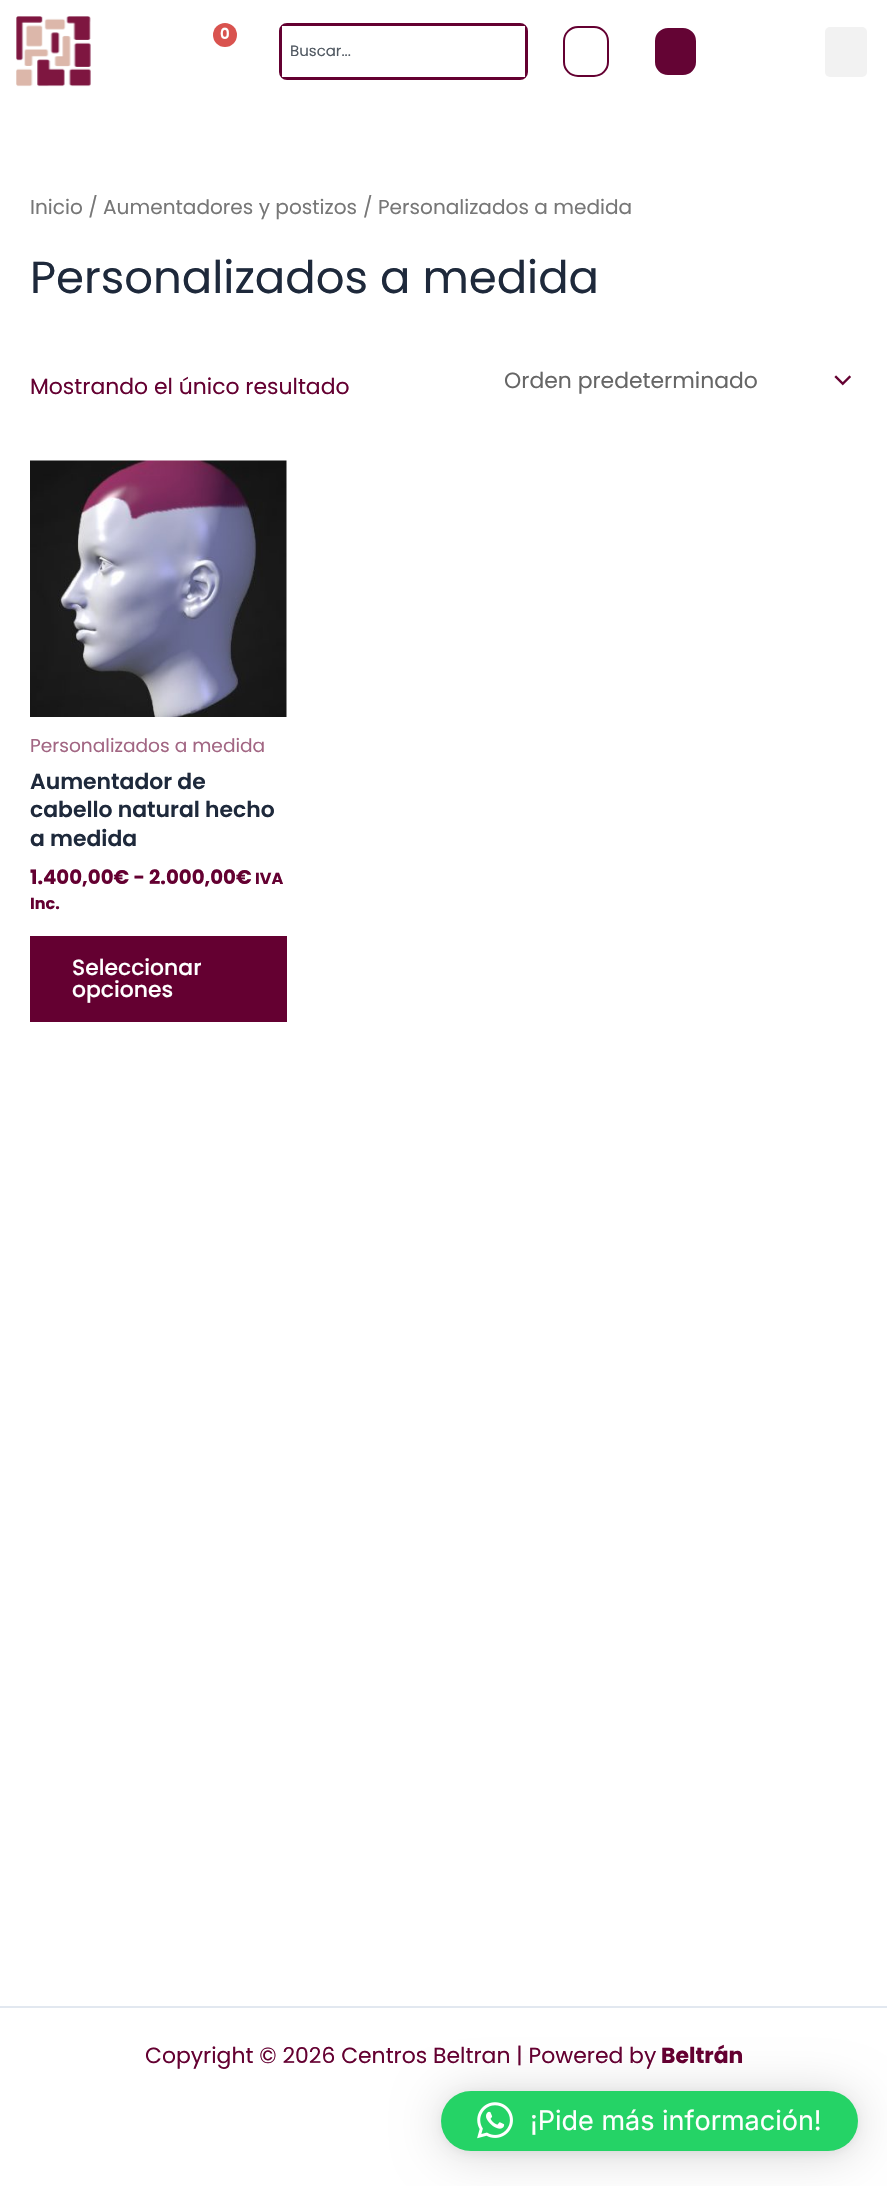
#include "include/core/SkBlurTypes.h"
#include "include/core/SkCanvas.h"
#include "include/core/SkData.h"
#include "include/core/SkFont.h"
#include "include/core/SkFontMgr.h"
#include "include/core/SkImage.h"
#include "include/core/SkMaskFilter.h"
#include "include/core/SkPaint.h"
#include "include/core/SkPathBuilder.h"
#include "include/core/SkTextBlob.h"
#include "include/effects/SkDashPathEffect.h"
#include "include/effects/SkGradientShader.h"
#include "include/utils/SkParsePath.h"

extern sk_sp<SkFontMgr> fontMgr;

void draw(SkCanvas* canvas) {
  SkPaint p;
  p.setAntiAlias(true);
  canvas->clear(SK_ColorWHITE);
  canvas->drawImageRect(SkImages::DeferredFromEncodedData(SkData::MakeFromFileName("images/1.png")), SkRect::MakeLTRB(16, 16, 91, 87), SkSamplingOptions());
  p.setColor(SkColorSetRGB(217, 83, 79));
  canvas->drawCircle(225, 35, 12, p);
  p.setStyle(SkPaint::kStroke_Style);
  p.setStrokeWidth(3);
  p.setColor(SkColorSetRGB(100, 0, 49));
  canvas->drawRoundRect(SkRect::MakeLTRB(280.5f, 24.5f, 526.5f, 78.5f), 6.5f, 6.5f, p);
  p.setStyle(SkPaint::kFill_Style);
  p.setColor(SK_ColorWHITE);
  canvas->drawRect(SkRect::MakeLTRB(282, 26, 287, 77), p);
  canvas->drawRect(SkRect::MakeLTRB(520, 26, 525, 77), p);
  p.setStyle(SkPaint::kStroke_Style);
  p.setStrokeWidth(2);
  p.setColor(SkColorSetRGB(100, 0, 49));
  canvas->drawRoundRect(SkRect::MakeLTRB(564, 27, 608, 76), 14, 14, p);
  p.setStyle(SkPaint::kFill_Style);
  p.setColor(SkColorSetRGB(100, 4, 52));
  canvas->drawRoundRect(SkRect::MakeLTRB(654, 27, 697, 76), 14, 14, p);
  p.setStyle(SkPaint::kStroke_Style);
  p.setColor(SK_ColorWHITE);
  canvas->drawRoundRect(SkRect::MakeLTRB(654, 27, 697, 76), 14, 14, p);
  p.setStyle(SkPaint::kFill_Style);
  p.setColor(SkColorSetRGB(242, 242, 242));
  canvas->drawRoundRect(SkRect::MakeLTRB(825, 27, 867, 77), 5, 5, p);
  canvas->drawImageRect(SkImages::DeferredFromEncodedData(SkData::MakeFromFileName("images/2.png")), SkRect::MakeLTRB(834, 375, 851, 386), SkSamplingOptions());
  canvas->drawImageRect(SkImages::DeferredFromEncodedData(SkData::MakeFromFileName("images/3.png")), SkRect::MakeLTRB(30, 460, 287, 717), SkSamplingOptions());
  p.setColor(SkColorSetRGB(100, 0, 49));
  canvas->drawRect(SkRect::MakeLTRB(30, 936, 287, 1022), p);
  p.setColor(SkColorSetRGB(226, 232, 240));
  canvas->drawRect(SkRect::MakeLTRB(0, 2006, 887, 2008), p);
  p.setColor(SkColorSetARGB(41, 0, 0, 0));
  p.setMaskFilter(SkMaskFilter::MakeBlur(kNormal_SkBlurStyle, 24));
  canvas->drawRoundRect(SkRect::MakeLTRB(441, 2094, 858, 2154), 30, 30, p);
  p.setMaskFilter(nullptr);
  p.setColor(SkColorSetARGB(15, 0, 0, 0));
  p.setMaskFilter(SkMaskFilter::MakeBlur(kNormal_SkBlurStyle, 4.5f));
  canvas->drawRoundRect(SkRect::MakeLTRB(441, 2093, 858, 2153), 30, 30, p);
  p.setMaskFilter(nullptr);
  p.setColor(SkColorSetRGB(37, 211, 102));
  canvas->drawRoundRect(SkRect::MakeLTRB(441, 2091, 858, 2151), 30, 30, p);
  canvas->drawImageRect(SkImages::DeferredFromEncodedData(SkData::MakeFromFileName("images/4.png")), SkRect::MakeLTRB(477, 2102, 513, 2139), SkSamplingOptions());
  SkFont font1(fontMgr->matchFamilyStyle("Poppins", SkFontStyle(600, SkFontStyle::kNormal_Width, SkFontStyle::kUpright_Slant)), 15);
  font1.setSubpixel(true);
  p.setColor(SK_ColorWHITE);
  canvas->drawString("0", 220, 39, font1, p);
  SkFont font2(fontMgr->matchFamilyStyle("Poppins", SkFontStyle::Normal()), 15);
  font2.setSubpixel(true);
  p.setColor(SkColorSetRGB(81, 89, 98));
  canvas->drawString("Buscar...", 290, 56, font2, p);
  SkFont font3(fontMgr->matchFamilyStyle("Poppins", SkFontStyle::Normal()), 20.1f);
  font3.setSubpixel(true);
  p.setColor(SkColorSetRGB(119, 119, 119));
  canvas->drawString("Inicio / Aumentadores y postizos", 30, 214, font3, p);
  canvas->drawString("/ Personalizados a medida", 363, 214, font3, p);
  SkFont font4(fontMgr->matchFamilyStyle("Poppins", SkFontStyle::Normal()), 45);
  font4.setSubpixel(true);
  p.setColor(SkColorSetRGB(30, 41, 59));
  canvas->drawString("Personalizados a medida", 30, 293, font4, p);
  SkFont font5(fontMgr->matchFamilyStyle("Poppins", SkFontStyle::Normal()), 21.9f);
  font5.setSubpixel(true);
  p.setColor(SkColorSetRGB(100, 0, 49));
  canvas->drawString("Mostrando el único resultado", 30, 394, font5, p);
  p.setColor(SkColorSetRGB(102, 102, 102));
  canvas->drawString("Orden predeterminado", 504, 388, font5, p);
  SkFont font6(fontMgr->matchFamilyStyle("Poppins", SkFontStyle::Normal()), 18.6f);
  font6.setSubpixel(true);
  p.setColor(SkColorSetRGB(162, 102, 131));
  canvas->drawString("Personalizados a medida", 30, 752, font6, p);
  SkFont font7(fontMgr->matchFamilyStyle("Poppins", SkFontStyle(600, SkFontStyle::kNormal_Width, SkFontStyle::kUpright_Slant)), 21.9f);
  font7.setSubpixel(true);
  p.setColor(SkColorSetRGB(30, 41, 59));
  canvas->drawString("Aumentador de", 30, 789, font7, p);
  canvas->drawString("cabello natural hecho", 30, 817, font7, p);
  canvas->drawString("a medida", 30, 846, font7, p);
  SkFont font8(fontMgr->matchFamilyStyle("Poppins", SkFontStyle::Bold()), 19.75f);
  font8.setSubpixel(true);
  p.setColor(SkColorSetRGB(100, 0, 49));
  canvas->drawString("1.400,00€ - 2.000,00€", 30, 884, font8, p);
  SkFont font9(fontMgr->matchFamilyStyle("Poppins", SkFontStyle::Bold()), 16);
  font9.setSubpixel(true);
  canvas->drawString("IVA", 255, 884, font9, p);
  canvas->drawString("Inc.", 30, 909, font9, p);
  SkFont font10(fontMgr->matchFamilyStyle("Poppins", SkFontStyle(500, SkFontStyle::kNormal_Width, SkFontStyle::kUpright_Slant)), 21.9f);
  font10.setSubpixel(true);
  p.setColor(SK_ColorWHITE);
  canvas->drawString("Seleccionar", 72, 975, font10, p);
  canvas->drawString("opciones", 72, 997, font10, p);
  p.setColor(SkColorSetRGB(100, 0, 49));
  canvas->drawString("Copyright © 2026 Centros Beltran | Powered by", 145, 2063, font5, p);
  SkFont font11(fontMgr->matchFamilyStyle("Poppins", SkFontStyle::Bold()), 21.9f);
  font11.setSubpixel(true);
  canvas->drawString("Beltrán", 661, 2063, font11, p);
  SkFont font12(fontMgr->matchFamilyStyle("Inter", SkFontStyle::Normal()), 27);
  font12.setSubpixel(true);
  p.setColor(SK_ColorWHITE);
  canvas->drawString("¡Pide más información!", 530, 2130, font12, p);
}
